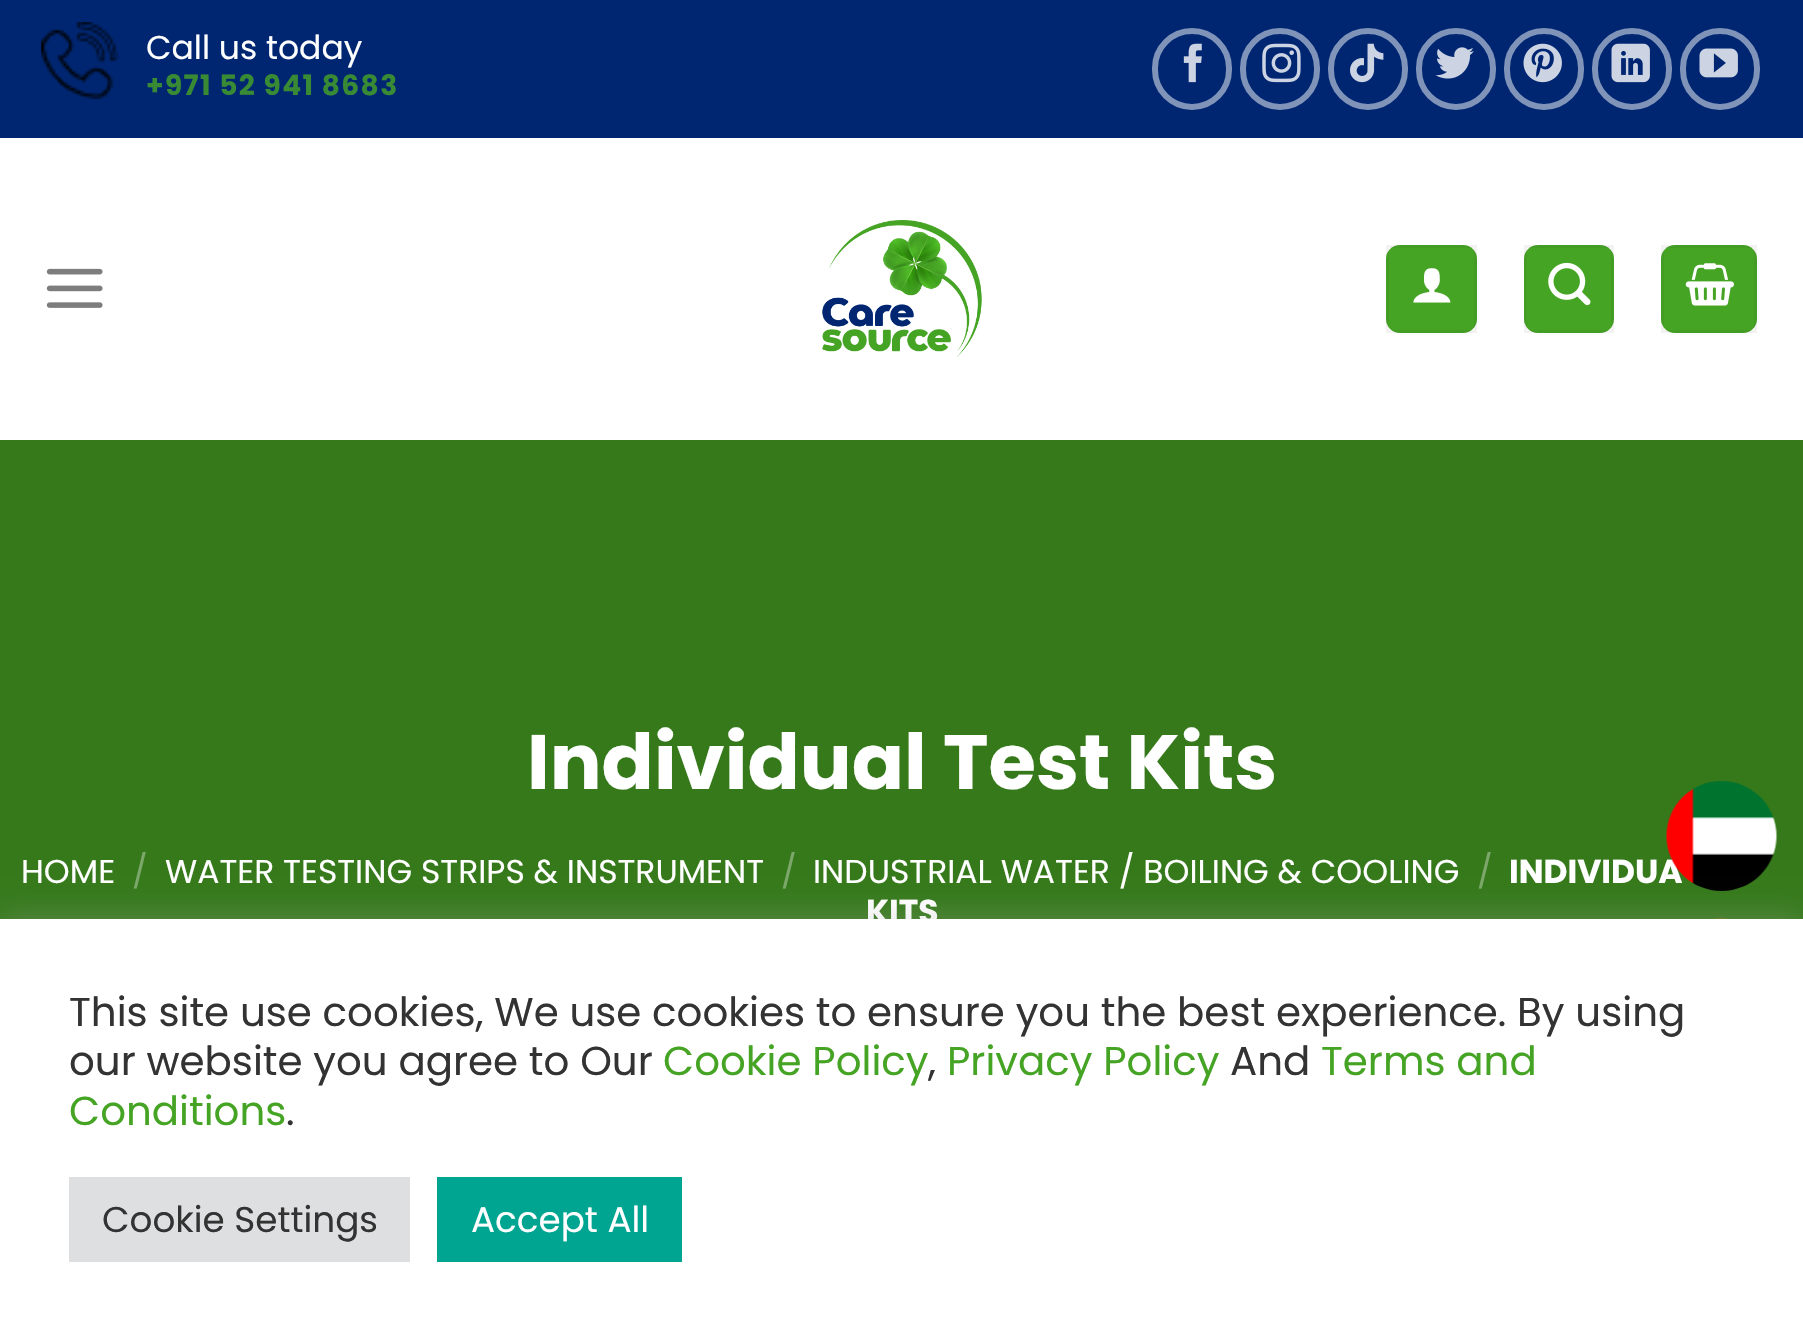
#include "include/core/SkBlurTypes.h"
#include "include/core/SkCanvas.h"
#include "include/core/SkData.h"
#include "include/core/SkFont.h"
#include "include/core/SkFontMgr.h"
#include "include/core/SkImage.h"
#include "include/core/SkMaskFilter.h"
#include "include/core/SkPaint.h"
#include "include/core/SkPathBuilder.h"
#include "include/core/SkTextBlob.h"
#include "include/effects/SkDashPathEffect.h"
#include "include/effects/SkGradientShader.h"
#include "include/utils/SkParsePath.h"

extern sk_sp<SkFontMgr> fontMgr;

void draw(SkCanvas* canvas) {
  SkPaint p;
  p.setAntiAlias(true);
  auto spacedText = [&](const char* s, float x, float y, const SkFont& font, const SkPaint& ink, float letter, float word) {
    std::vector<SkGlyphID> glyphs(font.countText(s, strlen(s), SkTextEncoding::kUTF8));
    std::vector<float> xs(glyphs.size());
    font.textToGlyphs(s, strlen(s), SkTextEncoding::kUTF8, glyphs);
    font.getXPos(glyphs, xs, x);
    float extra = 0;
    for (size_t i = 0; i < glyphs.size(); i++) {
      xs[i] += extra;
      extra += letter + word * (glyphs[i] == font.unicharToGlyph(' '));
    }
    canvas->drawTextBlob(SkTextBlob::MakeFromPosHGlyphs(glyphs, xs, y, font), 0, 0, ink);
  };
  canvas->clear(SK_ColorWHITE);
  p.setColor(SkColorSetRGB(0, 38, 114));
  canvas->drawRect(SkRect::MakeLTRB(0, 0, 1803, 138), p);
  canvas->drawImageRect(SkImages::DeferredFromEncodedData(SkData::MakeFromFileName("images/1.png")), SkRect::MakeLTRB(41, 22, 119, 99), SkSamplingOptions());
  p.setStyle(SkPaint::kStroke_Style);
  p.setStrokeWidth(6);
  p.setColor(SkColorSetRGB(128, 147, 185));
  canvas->drawRoundRect(SkRect::MakeLTRB(1155, 31, 1229, 107), 37, 37, p);
  canvas->drawImageRect(SkImages::DeferredFromEncodedData(SkData::MakeFromFileName("images/2.png")), SkRect::MakeLTRB(1183, 43, 1202, 83), SkSamplingOptions());
  canvas->drawRoundRect(SkRect::MakeLTRB(1243, 31, 1317, 107), 37, 37, p);
  canvas->drawImageRect(SkImages::DeferredFromEncodedData(SkData::MakeFromFileName("images/3.png")), SkRect::MakeLTRB(1262, 43, 1301, 83), SkSamplingOptions());
  canvas->drawRoundRect(SkRect::MakeLTRB(1331, 31, 1405, 107), 37, 37, p);
  canvas->drawImageRect(SkImages::DeferredFromEncodedData(SkData::MakeFromFileName("images/4.png")), SkRect::MakeLTRB(1350, 43, 1384, 83), SkSamplingOptions());
  canvas->drawRoundRect(SkRect::MakeLTRB(1419, 31, 1493, 107), 37, 37, p);
  canvas->drawImageRect(SkImages::DeferredFromEncodedData(SkData::MakeFromFileName("images/5.png")), SkRect::MakeLTRB(1435, 47, 1474, 79), SkSamplingOptions());
  canvas->drawRoundRect(SkRect::MakeLTRB(1507, 31, 1581, 107), 37, 37, p);
  canvas->drawImageRect(SkImages::DeferredFromEncodedData(SkData::MakeFromFileName("images/6.png")), SkRect::MakeLTRB(1523, 43, 1562, 83), SkSamplingOptions());
  canvas->drawRoundRect(SkRect::MakeLTRB(1595, 31, 1669, 107), 37, 37, p);
  canvas->drawImageRect(SkImages::DeferredFromEncodedData(SkData::MakeFromFileName("images/7.png")), SkRect::MakeLTRB(1611, 43, 1650, 83), SkSamplingOptions());
  canvas->drawRoundRect(SkRect::MakeLTRB(1683, 31, 1757, 107), 37, 37, p);
  canvas->drawImageRect(SkImages::DeferredFromEncodedData(SkData::MakeFromFileName("images/8.png")), SkRect::MakeLTRB(1699, 48, 1738, 78), SkSamplingOptions());
  canvas->drawImageRect(SkImages::DeferredFromEncodedData(SkData::MakeFromFileName("images/9.png")), SkRect::MakeLTRB(46, 268, 103, 308), SkSamplingOptions());
  canvas->drawImageRect(SkImages::DeferredFromEncodedData(SkData::MakeFromFileName("images/10.png")), SkRect::MakeLTRB(822, 220, 982, 357), SkSamplingOptions());
  p.setStyle(SkPaint::kFill_Style);
  p.setColor(SkColorSetRGB(70, 164, 37));
  canvas->drawRoundRect(SkRect::MakeLTRB(1386, 245, 1477, 333), 14, 14, p);
  p.setStyle(SkPaint::kStroke_Style);
  p.setStrokeWidth(3);
  p.setColor(SkColorSetARGB(13, 0, 0, 0));
  canvas->drawRect(SkRect::MakeLTRB(1387.5f, 246.5f, 1475.5f, 331.5f), p);
  canvas->drawImageRect(SkImages::DeferredFromEncodedData(SkData::MakeFromFileName("images/11.png")), SkRect::MakeLTRB(1413, 268, 1451, 303), SkSamplingOptions());
  p.setStyle(SkPaint::kFill_Style);
  p.setColor(SkColorSetRGB(70, 164, 37));
  canvas->drawRoundRect(SkRect::MakeLTRB(1524, 245, 1614, 333), 14, 14, p);
  p.setStyle(SkPaint::kStroke_Style);
  p.setColor(SkColorSetARGB(13, 0, 0, 0));
  canvas->drawRect(SkRect::MakeLTRB(1525.5f, 246.5f, 1612.5f, 331.5f), p);
  canvas->drawImageRect(SkImages::DeferredFromEncodedData(SkData::MakeFromFileName("images/12.png")), SkRect::MakeLTRB(1548, 262, 1591, 306), SkSamplingOptions());
  p.setStyle(SkPaint::kFill_Style);
  p.setColor(SkColorSetRGB(70, 164, 37));
  canvas->drawRoundRect(SkRect::MakeLTRB(1661, 245, 1757, 333), 14, 14, p);
  p.setStyle(SkPaint::kStroke_Style);
  p.setColor(SkColorSetARGB(13, 0, 0, 0));
  canvas->drawRect(SkRect::MakeLTRB(1662.5f, 246.5f, 1755.5f, 331.5f), p);
  canvas->drawImageRect(SkImages::DeferredFromEncodedData(SkData::MakeFromFileName("images/13.png")), SkRect::MakeLTRB(1685, 263, 1734, 306), SkSamplingOptions());
  p.setStyle(SkPaint::kFill_Style);
  p.setColor(SkColorSetRGB(53, 121, 27));
  canvas->drawRect(SkRect::MakeLTRB(0, 440, 1803, 919), p);
  canvas->drawImageRect(SkImages::DeferredFromEncodedData(SkData::MakeFromFileName("images/15.png")), SkRect::MakeLTRB(1714, 918, 1729, 919), SkSamplingOptions());
  SkFont font1(fontMgr->matchFamilyStyle("Poppins", SkFontStyle::Normal()), 33);
  font1.setSubpixel(true);
  p.setColor(SK_ColorWHITE);
  canvas->drawString("Call us today", 146, 59, font1, p);
  SkFont font2(fontMgr->matchFamilyStyle("Poppins", SkFontStyle::Bold()), 28);
  font2.setSubpixel(true);
  p.setColor(SkColorSetRGB(56, 139, 52));
  spacedText("+971 52 941 8683", 146, 95, font2, p, 1.4f, 0);
  SkFont font3(fontMgr->matchFamilyStyle("Poppins", SkFontStyle::Bold()), 77);
  font3.setSubpixel(true);
  p.setColor(SK_ColorWHITE);
  canvas->drawString("Individual Test Kits", 527, 789, font3, p);
  canvas->drawString("HOME", 21, 883, font1, p);
  p.setColor(SkColorSetRGB(124, 168, 107));
  canvas->drawString("/", 132, 883, font1, p);
  p.setColor(SK_ColorWHITE);
  canvas->drawString("WATER TESTING STRIPS & INSTRUMENT", 165, 883, font1, p);
  p.setColor(SkColorSetRGB(124, 168, 107));
  canvas->drawString("/", 781, 883, font1, p);
  p.setColor(SK_ColorWHITE);
  canvas->drawString("INDUSTRIAL WATER / BOILING & COOLING", 813, 883, font1, p);
  p.setColor(SkColorSetRGB(124, 168, 107));
  canvas->drawString("/", 1477, 883, font1, p);
  SkFont font4(fontMgr->matchFamilyStyle("Poppins", SkFontStyle::Bold()), 33);
  font4.setSubpixel(true);
  p.setColor(SK_ColorWHITE);
  canvas->drawString("INDIVIDUA", 1509, 883, font4, p);
  canvas->drawString("KITS", 866, 923, font4, p);
  canvas->drawImageRect(SkImages::DeferredFromEncodedData(SkData::MakeFromFileName("images/14.png")), SkRect::MakeLTRB(1666, 781, 1777, 891), SkSamplingOptions());
  p.setColor(SkColorSetARGB(77, 172, 171, 171));
  p.setMaskFilter(SkMaskFilter::MakeBlur(kNormal_SkBlurStyle, 14));
  canvas->drawRect(SkRect::MakeLTRB(0, 916, 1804, 1342), p);
  p.setMaskFilter(nullptr);
  p.setColor(SK_ColorWHITE);
  canvas->drawRect(SkRect::MakeLTRB(0, 919, 1803, 1343), p);
  SkFont font5(fontMgr->matchFamilyStyle("Poppins", SkFontStyle::Normal()), 40.35f);
  font5.setSubpixel(true);
  p.setColor(SkColorSetRGB(51, 51, 51));
  canvas->drawString("This site use cookies, We use cookies to ensure you the best experience. By using", 69, 1026, font5, p);
  canvas->drawString("our website you agree to Our", 69, 1075, font5, p);
  p.setColor(SkColorSetRGB(70, 164, 37));
  canvas->drawString("Cookie Policy", 663, 1075, font5, p);
  p.setColor(SkColorSetRGB(51, 51, 51));
  canvas->drawString(",", 928, 1075, font5, p);
  p.setColor(SkColorSetRGB(70, 164, 37));
  canvas->drawString("Privacy Policy", 947, 1075, font5, p);
  p.setColor(SkColorSetRGB(51, 51, 51));
  canvas->drawString("And", 1230, 1075, font5, p);
  p.setColor(SkColorSetRGB(70, 164, 37));
  canvas->drawString("Terms and", 1321, 1075, font5, p);
  canvas->drawString("Conditions", 69, 1125, font5, p);
  p.setColor(SkColorSetRGB(51, 51, 51));
  canvas->drawString(".", 286, 1125, font5, p);
  p.setColor(SkColorSetRGB(222, 223, 224));
  canvas->drawRect(SkRect::MakeLTRB(69, 1177, 410, 1262), p);
  SkFont font6(fontMgr->matchFamilyStyle("Poppins", SkFontStyle::Normal()), 35.75f);
  font6.setSubpixel(true);
  p.setColor(SkColorSetRGB(51, 51, 51));
  canvas->drawString("Cookie Settings", 102, 1232, font6, p);
  p.setColor(SkColorSetRGB(0, 165, 145));
  canvas->drawRect(SkRect::MakeLTRB(437, 1177, 682, 1262), p);
  p.setColor(SK_ColorWHITE);
  canvas->drawString("Accept All", 471, 1232, font6, p);
}
